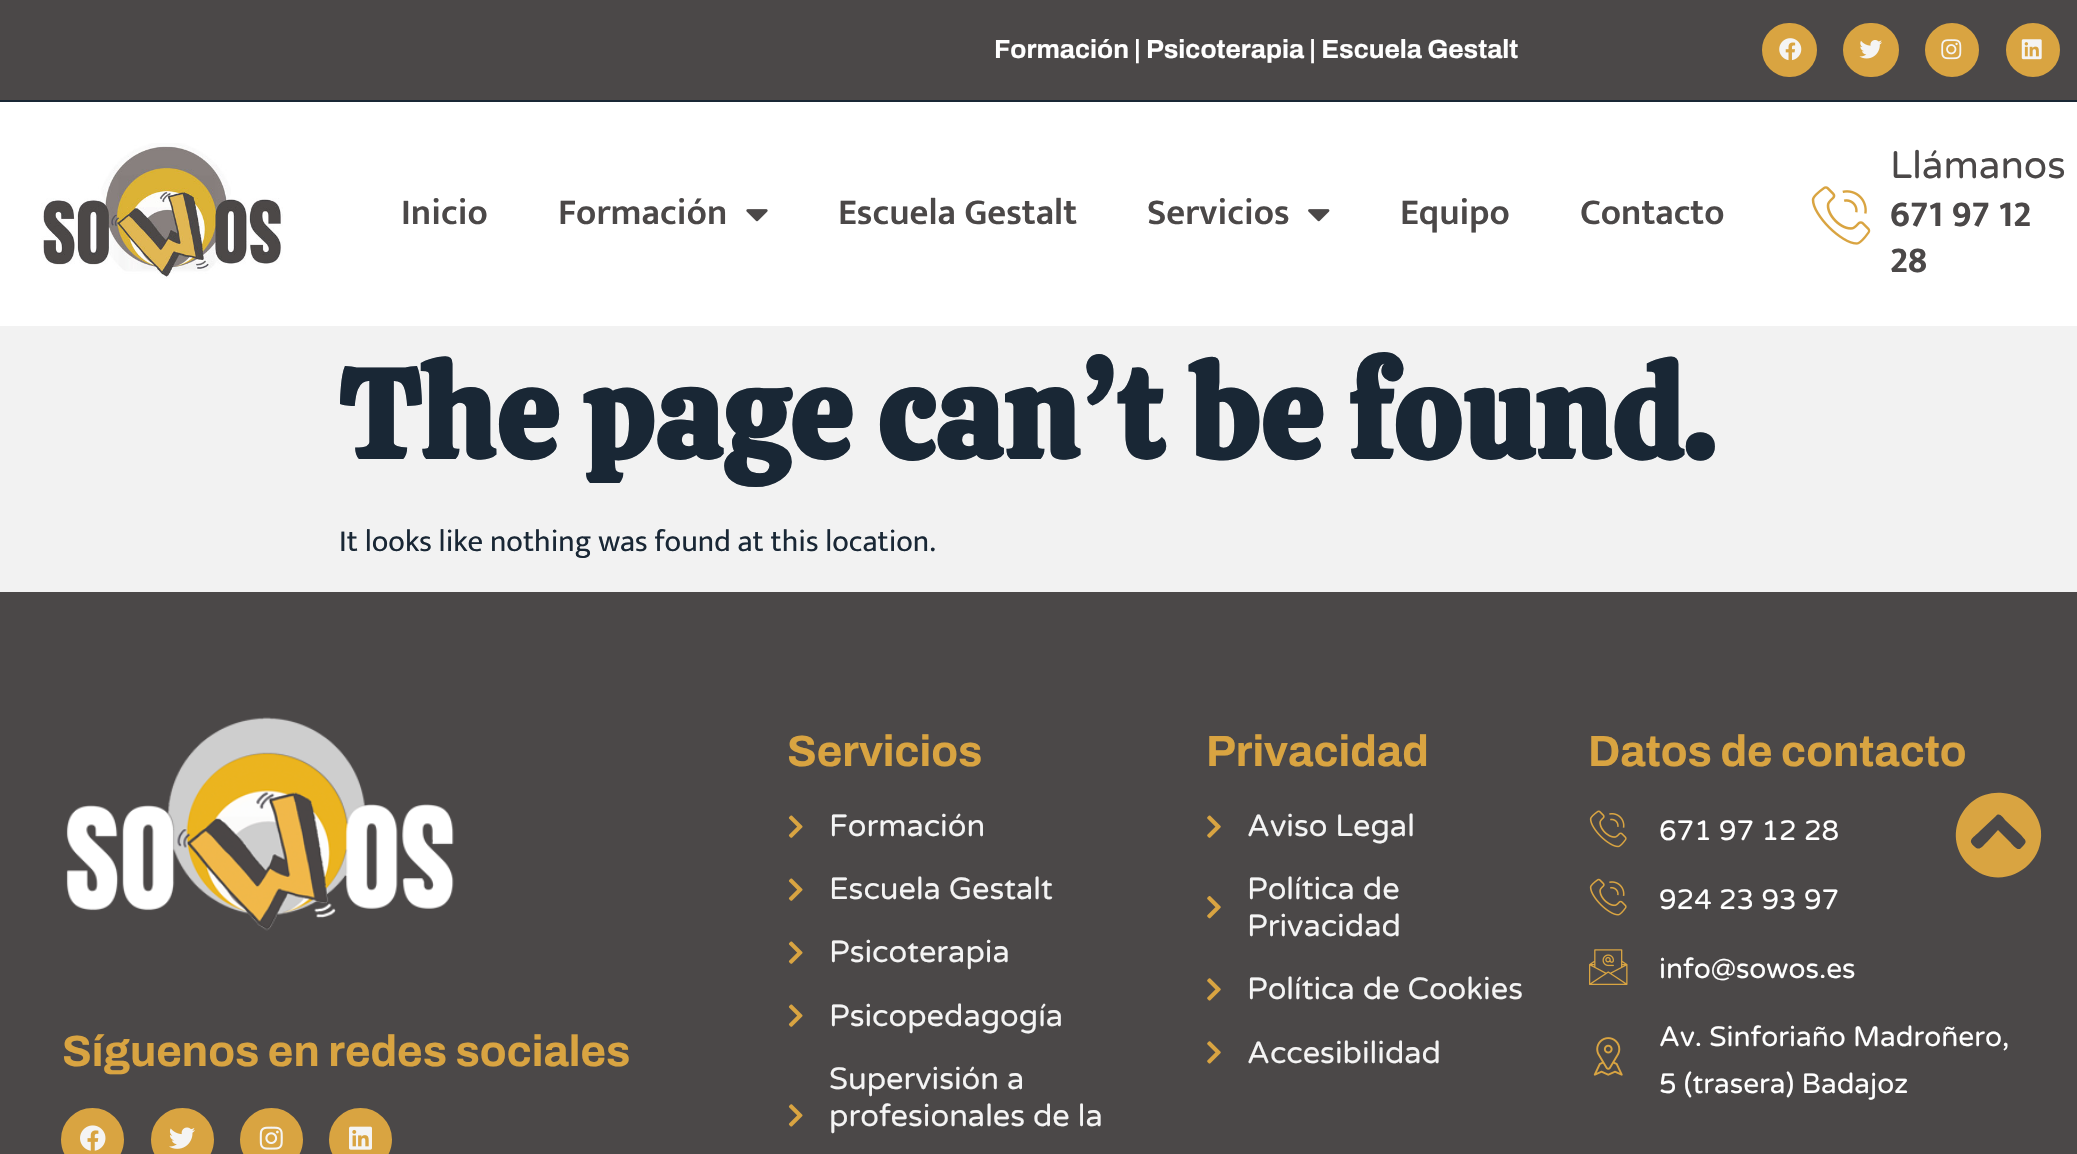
#include "include/core/SkBlurTypes.h"
#include "include/core/SkCanvas.h"
#include "include/core/SkData.h"
#include "include/core/SkFont.h"
#include "include/core/SkFontMgr.h"
#include "include/core/SkImage.h"
#include "include/core/SkMaskFilter.h"
#include "include/core/SkPaint.h"
#include "include/core/SkPathBuilder.h"
#include "include/core/SkTextBlob.h"
#include "include/effects/SkDashPathEffect.h"
#include "include/effects/SkGradientShader.h"
#include "include/utils/SkParsePath.h"

extern sk_sp<SkFontMgr> fontMgr;

void draw(SkCanvas* canvas) {
  SkPaint p;
  p.setAntiAlias(true);
  canvas->clear(SkColorSetRGB(242, 242, 242));
  p.setColor(SkColorSetRGB(75, 72, 72));
  canvas->drawRect(SkRect::MakeLTRB(0, 0, 2077, 100), p);
  p.setColor(SkColorSetRGB(25, 39, 53));
  canvas->drawRect(SkRect::MakeLTRB(0, 100, 2077, 102), p);
  p.setColor(SkColorSetRGB(217, 164, 65));
  canvas->drawRoundRect(SkRect::MakeLTRB(1763, 24, 1816, 76), 26, 26, p);
  p.setStyle(SkPaint::kStroke_Style);
  p.setStrokeWidth(2);
  canvas->drawRoundRect(SkRect::MakeLTRB(1763, 24, 1816, 76), 26, 26, p);
  canvas->drawImageRect(SkImages::DeferredFromEncodedData(SkData::MakeFromFileName("images/1.png")), SkRect::MakeLTRB(1779, 38, 1802, 61), SkSamplingOptions());
  p.setStyle(SkPaint::kFill_Style);
  canvas->drawRoundRect(SkRect::MakeLTRB(1844, 24, 1898, 76), 26, 26, p);
  p.setStyle(SkPaint::kStroke_Style);
  canvas->drawRoundRect(SkRect::MakeLTRB(1844, 24, 1898, 76), 26, 26, p);
  canvas->drawImageRect(SkImages::DeferredFromEncodedData(SkData::MakeFromFileName("images/2.png")), SkRect::MakeLTRB(1859, 40, 1882, 59), SkSamplingOptions());
  p.setStyle(SkPaint::kFill_Style);
  canvas->drawCircle(1952, 50, 26, p);
  p.setStyle(SkPaint::kStroke_Style);
  canvas->drawCircle(1952, 50, 26, p);
  canvas->drawImageRect(SkImages::DeferredFromEncodedData(SkData::MakeFromFileName("images/3.png")), SkRect::MakeLTRB(1941, 39, 1962, 60), SkSamplingOptions());
  p.setStyle(SkPaint::kFill_Style);
  canvas->drawCircle(2033, 50, 26, p);
  p.setStyle(SkPaint::kStroke_Style);
  canvas->drawCircle(2033, 50, 26, p);
  canvas->drawImageRect(SkImages::DeferredFromEncodedData(SkData::MakeFromFileName("images/4.png")), SkRect::MakeLTRB(2021, 39, 2042, 60), SkSamplingOptions());
  p.setStyle(SkPaint::kFill_Style);
  p.setColor(SK_ColorWHITE);
  canvas->drawRect(SkRect::MakeLTRB(0, 102, 2077, 326), p);
  canvas->drawImageRect(SkImages::DeferredFromEncodedData(SkData::MakeFromFileName("images/5.png")), SkRect::MakeLTRB(41, 143, 283, 279), SkSamplingOptions());
  canvas->drawImageRect(SkImages::DeferredFromEncodedData(SkData::MakeFromFileName("images/6.png")), SkRect::MakeLTRB(746, 209, 768, 222), SkSamplingOptions());
  canvas->drawImageRect(SkImages::DeferredFromEncodedData(SkData::MakeFromFileName("images/7.png")), SkRect::MakeLTRB(1308, 209, 1330, 222), SkSamplingOptions());
  canvas->drawImageRect(SkImages::DeferredFromEncodedData(SkData::MakeFromFileName("images/8.png")), SkRect::MakeLTRB(1811, 186, 1871, 245), SkSamplingOptions());
  p.setColor(SkColorSetRGB(75, 72, 72));
  canvas->drawRect(SkRect::MakeLTRB(0, 592, 2077, 1154), p);
  canvas->drawImageRect(SkImages::DeferredFromEncodedData(SkData::MakeFromFileName("images/9.png")), SkRect::MakeLTRB(66, 717, 454, 931), SkSamplingOptions());
  p.setColor(SkColorSetRGB(217, 164, 65));
  canvas->drawCircle(92.5f, 1139.5f, 30.5f, p);
  p.setStyle(SkPaint::kStroke_Style);
  canvas->drawCircle(92.5f, 1139.5f, 30.5f, p);
  canvas->drawImageRect(SkImages::DeferredFromEncodedData(SkData::MakeFromFileName("images/10.png")), SkRect::MakeLTRB(80, 1125, 106, 1151), SkSamplingOptions());
  p.setStyle(SkPaint::kFill_Style);
  canvas->drawCircle(182.5f, 1139.5f, 30.5f, p);
  p.setStyle(SkPaint::kStroke_Style);
  canvas->drawCircle(182.5f, 1139.5f, 30.5f, p);
  canvas->drawImageRect(SkImages::DeferredFromEncodedData(SkData::MakeFromFileName("images/11.png")), SkRect::MakeLTRB(169, 1127, 195, 1149), SkSamplingOptions());
  p.setStyle(SkPaint::kFill_Style);
  canvas->drawCircle(271.5f, 1139.5f, 30.5f, p);
  p.setStyle(SkPaint::kStroke_Style);
  canvas->drawCircle(271.5f, 1139.5f, 30.5f, p);
  canvas->drawImageRect(SkImages::DeferredFromEncodedData(SkData::MakeFromFileName("images/12.png")), SkRect::MakeLTRB(259, 1126, 283, 1150), SkSamplingOptions());
  p.setStyle(SkPaint::kFill_Style);
  canvas->drawCircle(360.5f, 1139.5f, 30.5f, p);
  p.setStyle(SkPaint::kStroke_Style);
  canvas->drawCircle(360.5f, 1139.5f, 30.5f, p);
  canvas->drawImageRect(SkImages::DeferredFromEncodedData(SkData::MakeFromFileName("images/13.png")), SkRect::MakeLTRB(349, 1126, 372, 1150), SkSamplingOptions());
  canvas->drawImageRect(SkImages::DeferredFromEncodedData(SkData::MakeFromFileName("images/14.png")), SkRect::MakeLTRB(788, 815, 803, 838), SkSamplingOptions());
  canvas->drawImageRect(SkImages::DeferredFromEncodedData(SkData::MakeFromFileName("images/14.png")), SkRect::MakeLTRB(788, 878, 803, 901), SkSamplingOptions());
  canvas->drawImageRect(SkImages::DeferredFromEncodedData(SkData::MakeFromFileName("images/14.png")), SkRect::MakeLTRB(788, 941, 803, 964), SkSamplingOptions());
  canvas->drawImageRect(SkImages::DeferredFromEncodedData(SkData::MakeFromFileName("images/14.png")), SkRect::MakeLTRB(788, 1004, 803, 1027), SkSamplingOptions());
  canvas->drawImageRect(SkImages::DeferredFromEncodedData(SkData::MakeFromFileName("images/15.png")), SkRect::MakeLTRB(788, 1104, 803, 1127), SkSamplingOptions());
  canvas->drawImageRect(SkImages::DeferredFromEncodedData(SkData::MakeFromFileName("images/16.png")), SkRect::MakeLTRB(1207, 815, 1221, 838), SkSamplingOptions());
  canvas->drawImageRect(SkImages::DeferredFromEncodedData(SkData::MakeFromFileName("images/17.png")), SkRect::MakeLTRB(1207, 896, 1221, 919), SkSamplingOptions());
  canvas->drawImageRect(SkImages::DeferredFromEncodedData(SkData::MakeFromFileName("images/18.png")), SkRect::MakeLTRB(1207, 978, 1221, 1001), SkSamplingOptions());
  canvas->drawImageRect(SkImages::DeferredFromEncodedData(SkData::MakeFromFileName("images/18.png")), SkRect::MakeLTRB(1207, 1041, 1221, 1064), SkSamplingOptions());
  canvas->drawImageRect(SkImages::DeferredFromEncodedData(SkData::MakeFromFileName("images/19.png")), SkRect::MakeLTRB(1589, 810, 1627, 848), SkSamplingOptions());
  canvas->drawImageRect(SkImages::DeferredFromEncodedData(SkData::MakeFromFileName("images/20.png")), SkRect::MakeLTRB(1589, 878, 1627, 916), SkSamplingOptions());
  canvas->drawImageRect(SkImages::DeferredFromEncodedData(SkData::MakeFromFileName("images/21.png")), SkRect::MakeLTRB(1589, 949, 1628, 985), SkSamplingOptions());
  canvas->drawImageRect(SkImages::DeferredFromEncodedData(SkData::MakeFromFileName("images/22.png")), SkRect::MakeLTRB(1593, 1037, 1623, 1076), SkSamplingOptions());
  p.setStyle(SkPaint::kFill_Style);
  canvas->drawPath(SkPathBuilder().moveTo(1969, 865).cubicTo(1940, 837, 1963, 789, 2003, 793).cubicTo(2013, 794, 2022, 798, 2028, 805).cubicTo(2035, 812, 2040, 821, 2041, 831).cubicTo(2044, 870, 1997, 893, 1969, 865).close().moveTo(1996, 816).lineTo(1980, 831).cubicTo(1972, 839, 1967, 840, 1975, 847).cubicTo(1980, 852, 1984, 844, 1987, 842).lineTo(1998, 830).lineTo(2010, 842).cubicTo(2012, 844, 2016, 850, 2020, 849).lineTo(2023, 846).cubicTo(2028, 841, 2025, 840, 2021, 835).lineTo(2005, 820).cubicTo(2003, 817, 1999, 812, 1996, 816).close().detach(), p);
  SkFont font1(fontMgr->matchFamilyStyle("Archivo", SkFontStyle::Bold()), 26.25f);
  font1.setSubpixel(true);
  p.setColor(SK_ColorWHITE);
  canvas->drawString("Formación | Psicoterapia | Escuela Gestalt", 994, 58, font1, p);
  SkFont font2(fontMgr->matchFamilyStyle("Mukta Vaani", SkFontStyle(600, SkFontStyle::kNormal_Width, SkFontStyle::kUpright_Slant)), 36.75f);
  font2.setSubpixel(true);
  p.setColor(SkColorSetRGB(75, 72, 72));
  canvas->drawString("Inicio", 401, 224, font2, p);
  canvas->drawString("Formación", 558, 224, font2, p);
  canvas->drawString("Escuela Gestalt", 838, 224, font2, p);
  canvas->drawString("Servicios", 1147, 224, font2, p);
  canvas->drawString("Equipo", 1400, 224, font2, p);
  canvas->drawString("Contacto", 1580, 224, font2, p);
  SkFont font3(fontMgr->matchFamilyStyle("Varela Round", SkFontStyle::Normal()), 38.5f);
  font3.setSubpixel(true);
  canvas->drawString("Llámanos", 1890, 178, font3, p);
  SkFont font4(fontMgr->matchFamilyStyle("Mukta Vaani", SkFontStyle::Bold()), 36.75f);
  font4.setSubpixel(true);
  canvas->drawString("671 97 12", 1890, 226, font4, p);
  canvas->drawString("28", 1890, 272, font4, p);
  SkFont font5(fontMgr->matchFamilyStyle("Calistoga", SkFontStyle::Bold()), 126);
  font5.setSubpixel(true);
  p.setColor(SkColorSetRGB(25, 39, 53));
  canvas->drawString("The page can’t be found.", 339, 459, font5, p);
  SkFont font6(fontMgr->matchFamilyStyle("Mukta Vaani", SkFontStyle::Normal()), 30.75f);
  font6.setSubpixel(true);
  canvas->drawString("It looks like nothing was found at this location.", 339, 551, font6, p);
  SkFont font7(fontMgr->matchFamilyStyle("Archivo", SkFontStyle::Bold()), 43.75f);
  font7.setSubpixel(true);
  p.setColor(SkColorSetRGB(217, 164, 65));
  canvas->drawString("Síguenos en redes sociales", 62, 1066, font7, p);
  canvas->drawString("Servicios", 787, 766, font7, p);
  SkFont font8(fontMgr->matchFamilyStyle("Varela Round", SkFontStyle::Normal()), 30.75f);
  font8.setSubpixel(true);
  p.setColor(SkColorSetRGB(244, 244, 244));
  canvas->drawString("Formación", 829, 836, font8, p);
  canvas->drawString("Escuela Gestalt", 829, 899, font8, p);
  canvas->drawString("Psicoterapia", 829, 962, font8, p);
  canvas->drawString("Psicopedagogía", 829, 1026, font8, p);
  canvas->drawString("Supervisión a", 829, 1089, font8, p);
  canvas->drawString("profesionales de la", 829, 1126, font8, p);
  p.setColor(SkColorSetRGB(217, 164, 65));
  canvas->drawString("Privacidad", 1206, 766, font7, p);
  p.setColor(SkColorSetRGB(244, 244, 244));
  canvas->drawString("Aviso Legal", 1247, 836, font8, p);
  canvas->drawString("Política de", 1247, 899, font8, p);
  canvas->drawString("Privacidad", 1247, 936, font8, p);
  canvas->drawString("Política de Cookies", 1247, 999, font8, p);
  canvas->drawString("Accesibilidad", 1247, 1063, font8, p);
  p.setColor(SkColorSetRGB(217, 164, 65));
  canvas->drawString("Datos de contacto", 1588, 766, font7, p);
  SkFont font9(fontMgr->matchFamilyStyle("Varela Round", SkFontStyle::Normal()), 28);
  font9.setSubpixel(true);
  p.setColor(SK_ColorWHITE);
  canvas->drawString("671 97 12 28", 1659, 840, font9, p);
  canvas->drawString("924 23 93 97", 1659, 909, font9, p);
  canvas->drawString("info@sowos.es", 1659, 978, font9, p);
  canvas->drawString("Av. Sinforiaño Madroñero,", 1659, 1046, font9, p);
  canvas->drawString("5 (trasera) Badajoz", 1659, 1093, font9, p);
}
